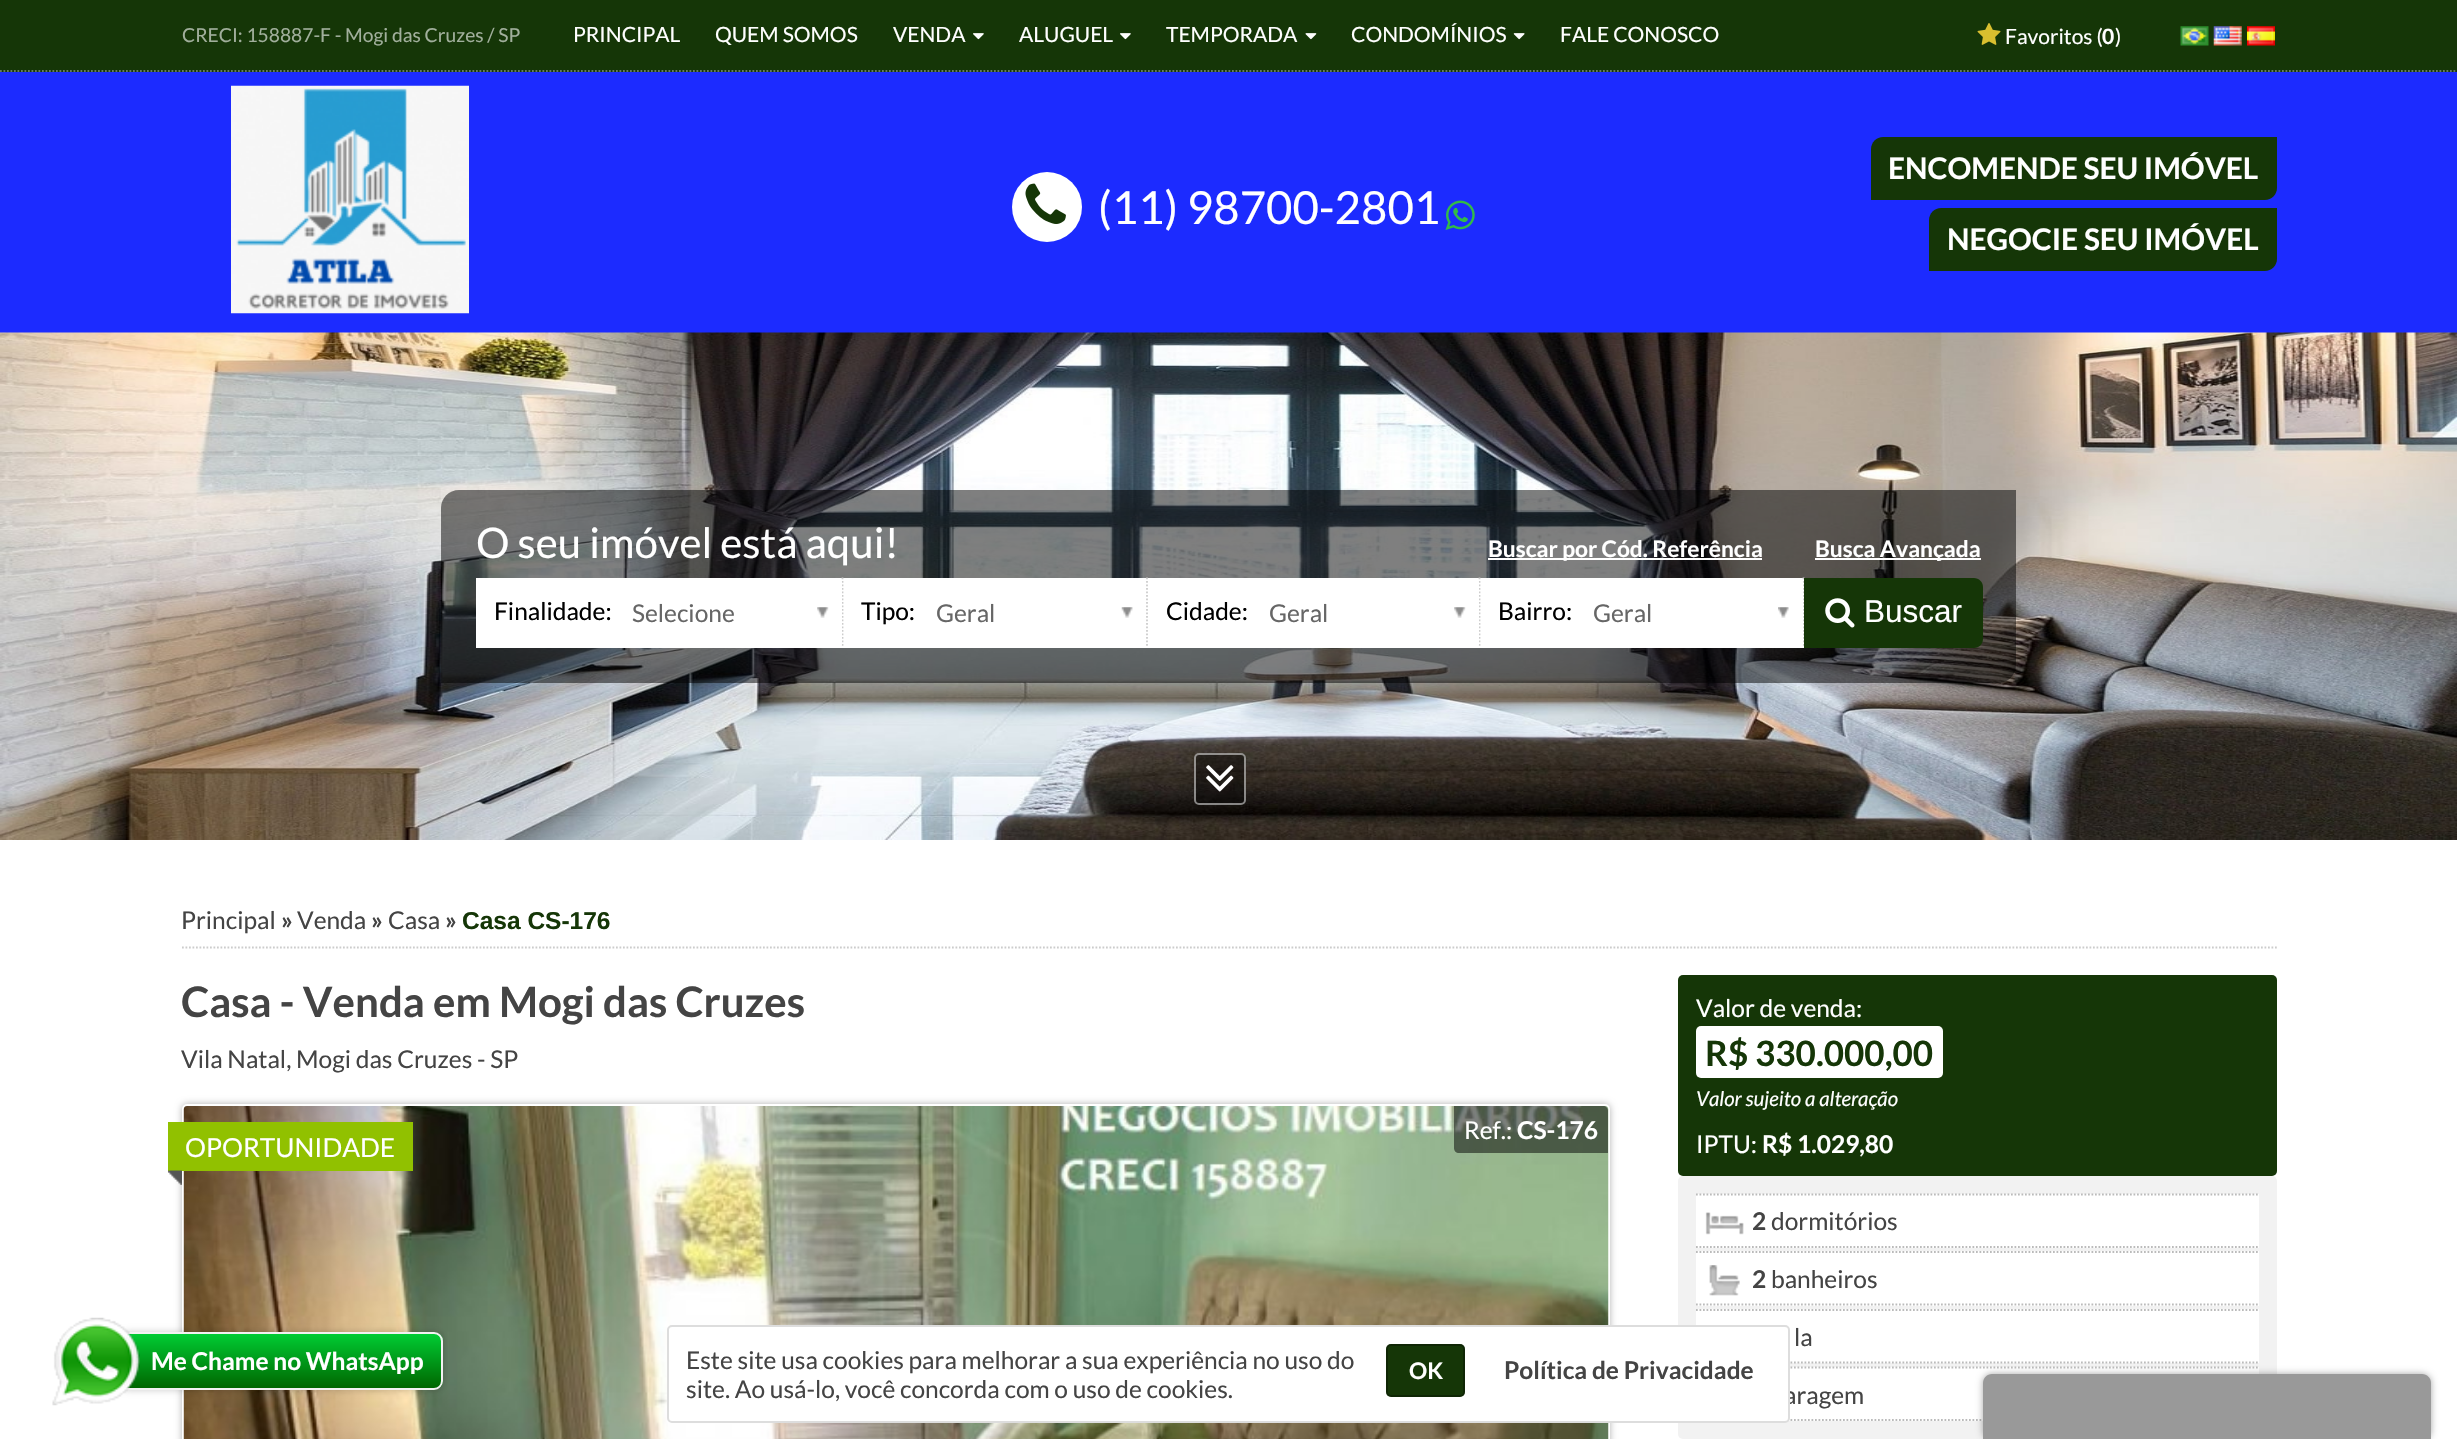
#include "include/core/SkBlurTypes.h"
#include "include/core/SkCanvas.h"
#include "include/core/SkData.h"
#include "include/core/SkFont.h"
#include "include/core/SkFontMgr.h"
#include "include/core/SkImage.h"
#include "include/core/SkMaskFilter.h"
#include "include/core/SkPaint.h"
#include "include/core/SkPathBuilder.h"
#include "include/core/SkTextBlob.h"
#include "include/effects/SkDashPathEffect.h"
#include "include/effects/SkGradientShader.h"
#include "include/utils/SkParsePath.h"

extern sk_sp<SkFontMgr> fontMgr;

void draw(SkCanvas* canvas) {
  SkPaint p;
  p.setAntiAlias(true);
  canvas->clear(SK_ColorWHITE);
  p.setColor(SkColorSetRGB(28, 43, 255));
  canvas->drawRect(SkRect::MakeLTRB(0, 72, 2457, 333), p);
  p.setColor(SkColorSetRGB(21, 54, 7));
  canvas->drawRect(SkRect::MakeLTRB(0, 0, 2457, 72), p);
  p.setStyle(SkPaint::kStroke_Style);
  p.setStrokeWidth(1.8f);
  p.setColor(SkColorSetRGB(103, 124, 94));
  p.setPathEffect(SkDashPathEffect::Make({{1.75f, 1.75f}}, 0));
  canvas->drawPath(SkPathBuilder().moveTo(0, 71).lineTo(2457, 71).detach(), p);
  p.setPathEffect(nullptr);
  canvas->drawImageRect(SkImages::DeferredFromEncodedData(SkData::MakeFromFileName("images/1.png")), SkRect::MakeLTRB(973, 33, 984, 40), SkSamplingOptions());
  canvas->drawImageRect(SkImages::DeferredFromEncodedData(SkData::MakeFromFileName("images/1.png")), SkRect::MakeLTRB(1120, 33, 1131, 40), SkSamplingOptions());
  canvas->drawImageRect(SkImages::DeferredFromEncodedData(SkData::MakeFromFileName("images/2.png")), SkRect::MakeLTRB(1305, 33, 1317, 40), SkSamplingOptions());
  canvas->drawImageRect(SkImages::DeferredFromEncodedData(SkData::MakeFromFileName("images/3.png")), SkRect::MakeLTRB(1513, 33, 1525, 40), SkSamplingOptions());
  canvas->drawImageRect(SkImages::DeferredFromEncodedData(SkData::MakeFromFileName("images/4.png")), SkRect::MakeLTRB(1977, 23, 2001, 45), SkSamplingOptions());
  canvas->drawImageRect(SkImages::DeferredFromEncodedData(SkData::MakeFromFileName("images/5.png")), SkRect::MakeLTRB(2180, 26, 2209, 46), SkSamplingOptions());
  canvas->drawImageRect(SkImages::DeferredFromEncodedData(SkData::MakeFromFileName("images/6.png")), SkRect::MakeLTRB(2213, 26, 2242, 46), SkSamplingOptions());
  canvas->drawImageRect(SkImages::DeferredFromEncodedData(SkData::MakeFromFileName("images/7.png")), SkRect::MakeLTRB(2247, 26, 2275, 46), SkSamplingOptions());
  canvas->drawImageRect(SkImages::DeferredFromEncodedData(SkData::MakeFromFileName("images/8.png")), SkRect::MakeLTRB(231, 85, 469, 314), SkSamplingOptions());
  p.setStyle(SkPaint::kFill_Style);
  p.setColor(SK_ColorWHITE);
  canvas->drawCircle(1047, 207, 35, p);
  canvas->drawImageRect(SkImages::DeferredFromEncodedData(SkData::MakeFromFileName("images/9.png")), SkRect::MakeLTRB(1025, 183, 1066, 224), SkSamplingOptions());
  canvas->drawImageRect(SkImages::DeferredFromEncodedData(SkData::MakeFromFileName("images/10.png")), SkRect::MakeLTRB(1445, 200, 1475, 230), SkSamplingOptions());
  p.setColor(SkColorSetRGB(21, 54, 7));
  canvas->drawPath(SkPathBuilder().moveTo(1883, 137).lineTo(2277, 137).lineTo(2277, 188).cubicTo(2277, 194.5f, 2271.5f, 200, 2265, 200).lineTo(1871, 200).lineTo(1871, 149).cubicTo(1871, 142.5f, 1876.5f, 137, 1883, 137).close().detach(), p);
  canvas->drawPath(SkPathBuilder().moveTo(1941, 208).lineTo(2277, 208).lineTo(2277, 259).cubicTo(2277, 265.5f, 2271.5f, 271, 2265, 271).lineTo(1929, 271).lineTo(1929, 220).cubicTo(1929, 213.5f, 1934.5f, 208, 1941, 208).close().detach(), p);
  canvas->drawImageRect(SkImages::DeferredFromEncodedData(SkData::MakeFromFileName("images/11.png")), SkRect::MakeLTRB(0, 332, 2457, 840), SkSamplingOptions());
  p.setColor(SkColorSetARGB(128, 0, 0, 0));
  canvas->drawPath(SkPathBuilder().moveTo(459, 490).lineTo(2016, 490).lineTo(2016, 665).cubicTo(2016, 675, 2008, 683, 1998, 683).lineTo(441, 683).lineTo(441, 508).cubicTo(441, 498, 449, 490, 459, 490).close().detach(), p);
  p.setColor(SK_ColorWHITE);
  canvas->drawRect(SkRect::MakeLTRB(1488, 558, 1762, 560), p);
  canvas->drawRect(SkRect::MakeLTRB(1815, 558, 1981, 560), p);
  canvas->drawRect(SkRect::MakeLTRB(476, 578, 1804, 648), p);
  p.setStyle(SkPaint::kStroke_Style);
  p.setColor(SkColorSetRGB(204, 204, 204));
  p.setPathEffect(SkDashPathEffect::Make({{1.75f, 1.75f}}, 0));
  canvas->drawPath(SkPathBuilder().moveTo(842.5f, 577.5f).lineTo(842.5f, 647.5f).detach(), p);
  p.setPathEffect(nullptr);
  p.setStyle(SkPaint::kFill_Style);
  p.setColor(SK_ColorWHITE);
  canvas->drawRoundRect(SkRect::MakeLTRB(621, 578, 842, 648), 4, 4, p);
  canvas->drawImageRect(SkImages::DeferredFromEncodedData(SkData::MakeFromFileName("images/12.png")), SkRect::MakeLTRB(817, 607, 829, 618), SkSamplingOptions());
  p.setStyle(SkPaint::kStroke_Style);
  p.setColor(SkColorSetRGB(204, 204, 204));
  p.setPathEffect(SkDashPathEffect::Make({{1.75f, 1.75f}}, 0));
  canvas->drawPath(SkPathBuilder().moveTo(1147, 577.5f).lineTo(1147, 647.5f).detach(), p);
  p.setPathEffect(nullptr);
  canvas->drawImageRect(SkImages::DeferredFromEncodedData(SkData::MakeFromFileName("images/13.png")), SkRect::MakeLTRB(1121, 607, 1133, 618), SkSamplingOptions());
  p.setPathEffect(SkDashPathEffect::Make({{1.75f, 1.75f}}, 0));
  canvas->drawPath(SkPathBuilder().moveTo(1479.5f, 577.5f).lineTo(1479.5f, 647.5f).detach(), p);
  p.setPathEffect(nullptr);
  p.setStyle(SkPaint::kFill_Style);
  p.setColor(SK_ColorWHITE);
  canvas->drawRoundRect(SkRect::MakeLTRB(1258, 578, 1479, 648), 4, 4, p);
  canvas->drawImageRect(SkImages::DeferredFromEncodedData(SkData::MakeFromFileName("images/12.png")), SkRect::MakeLTRB(1454, 607, 1466, 618), SkSamplingOptions());
  p.setStyle(SkPaint::kStroke_Style);
  p.setColor(SkColorSetRGB(204, 204, 204));
  p.setPathEffect(SkDashPathEffect::Make({{1.75f, 1.75f}}, 0));
  canvas->drawPath(SkPathBuilder().moveTo(1803.5f, 577.5f).lineTo(1803.5f, 647.5f).detach(), p);
  p.setPathEffect(nullptr);
  p.setStyle(SkPaint::kFill_Style);
  p.setColor(SK_ColorWHITE);
  canvas->drawRoundRect(SkRect::MakeLTRB(1582, 578, 1803, 648), 4, 4, p);
  canvas->drawImageRect(SkImages::DeferredFromEncodedData(SkData::MakeFromFileName("images/14.png")), SkRect::MakeLTRB(1778, 607, 1789, 618), SkSamplingOptions());
  p.setColor(SkColorSetRGB(21, 54, 7));
  canvas->drawPath(SkPathBuilder().moveTo(1804, 578).lineTo(1974, 578).cubicTo(1979, 578, 1983, 582, 1983, 587).lineTo(1983, 639).cubicTo(1983, 644, 1979, 648, 1974, 648).lineTo(1804, 648).close().detach(), p);
  canvas->drawImageRect(SkImages::DeferredFromEncodedData(SkData::MakeFromFileName("images/15.png")), SkRect::MakeLTRB(1825, 598, 1855, 628), SkSamplingOptions());
  p.setColor(SkColorSetARGB(102, 0, 0, 0));
  canvas->drawRoundRect(SkRect::MakeLTRB(1194, 753, 1246, 805), 5, 5, p);
  p.setStyle(SkPaint::kStroke_Style);
  p.setStrokeWidth(2);
  p.setColor(SkColorSetARGB(128, 255, 255, 255));
  canvas->drawRoundRect(SkRect::MakeLTRB(1195, 754, 1245, 804), 4, 4, p);
  canvas->drawImageRect(SkImages::DeferredFromEncodedData(SkData::MakeFromFileName("images/16.png")), SkRect::MakeLTRB(1206, 765, 1234, 792), SkSamplingOptions());
  p.setStrokeWidth(1.8f);
  p.setColor(SkColorSetRGB(204, 204, 204));
  p.setPathEffect(SkDashPathEffect::Make({{1.75f, 1.75f}}, 0));
  canvas->drawPath(SkPathBuilder().moveTo(182, 947.5f).lineTo(2277, 947.5f).detach(), p);
  p.setPathEffect(nullptr);
  p.setStyle(SkPaint::kFill_Style);
  p.setColor(SkColorSetARGB(77, 0, 0, 0));
  p.setMaskFilter(SkMaskFilter::MakeBlur(kNormal_SkBlurStyle, 3.5f));
  canvas->drawRoundRect(SkRect::MakeLTRB(182, 1104, 1610, 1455), 5, 5, p);
  p.setMaskFilter(nullptr);
  p.setStyle(SkPaint::kStroke_Style);
  p.setStrokeWidth(2);
  p.setColor(SK_ColorWHITE);
  canvas->drawRoundRect(SkRect::MakeLTRB(183, 1105, 1609, 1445), 4, 4, p);
  canvas->drawImageRect(SkImages::DeferredFromEncodedData(SkData::MakeFromFileName("images/17.png")), SkRect::MakeLTRB(183, 1106, 1609, 1439), SkSamplingOptions());
  p.setStyle(SkPaint::kFill_Style);
  p.setColor(SkColorSetARGB(128, 0, 0, 0));
  canvas->drawPath(SkPathBuilder().moveTo(1454, 1106).lineTo(1603, 1106).cubicTo(1606, 1106, 1608, 1108, 1608, 1111).lineTo(1608, 1153).lineTo(1459, 1153).cubicTo(1456, 1153, 1454, 1151, 1454, 1148).close().detach(), p);
  p.setColor(SkColorSetRGB(145, 193, 0));
  canvas->drawRect(SkRect::MakeLTRB(168, 1122, 413, 1171), p);
  canvas->drawImageRect(SkImages::DeferredFromEncodedData(SkData::MakeFromFileName("images/18.png")), SkRect::MakeLTRB(168, 1170, 182, 1185), SkSamplingOptions());
  canvas->drawImageRect(SkImages::DeferredFromEncodedData(SkData::MakeFromFileName("images/19.png")), SkRect::MakeLTRB(168, 1170, 182, 1185), SkSamplingOptions());
  p.setColor(SkColorSetRGB(21, 54, 7));
  canvas->drawRoundRect(SkRect::MakeLTRB(1678, 975, 2277, 1176), 5, 5, p);
  p.setColor(SK_ColorWHITE);
  canvas->drawRoundRect(SkRect::MakeLTRB(1696, 1026, 1943, 1078), 5, 5, p);
  p.setColor(SkColorSetRGB(242, 242, 242));
  canvas->drawRoundRect(SkRect::MakeLTRB(1678, 1176, 2277, 1439), 5, 5, p);
  p.setColor(SK_ColorWHITE);
  canvas->drawRect(SkRect::MakeLTRB(1696, 1194, 2259, 1248), p);
  canvas->drawImageRect(SkImages::DeferredFromEncodedData(SkData::MakeFromFileName("images/20.png")), SkRect::MakeLTRB(1705, 1212, 1744, 1235), SkSamplingOptions());
  p.setStyle(SkPaint::kStroke_Style);
  p.setStrokeWidth(1.8f);
  p.setColor(SkColorSetRGB(187, 187, 187));
  p.setPathEffect(SkDashPathEffect::Make({{1.75f, 1.75f}}, 0));
  canvas->drawPath(SkPathBuilder().moveTo(1696, 1194.5f).lineTo(2259, 1194.5f).detach(), p);
  p.setPathEffect(nullptr);
  p.setPathEffect(SkDashPathEffect::Make({{1.75f, 1.75f}}, 0));
  canvas->drawPath(SkPathBuilder().moveTo(1696, 1247).lineTo(2259, 1247).detach(), p);
  p.setPathEffect(nullptr);
  p.setStyle(SkPaint::kFill_Style);
  p.setColor(SK_ColorWHITE);
  canvas->drawRect(SkRect::MakeLTRB(1696, 1251, 2259, 1306), p);
  canvas->drawImageRect(SkImages::DeferredFromEncodedData(SkData::MakeFromFileName("images/21.png")), SkRect::MakeLTRB(1709, 1265, 1740, 1296), SkSamplingOptions());
  p.setStyle(SkPaint::kStroke_Style);
  p.setColor(SkColorSetRGB(187, 187, 187));
  p.setPathEffect(SkDashPathEffect::Make({{1.75f, 1.75f}}, 0));
  canvas->drawPath(SkPathBuilder().moveTo(1696, 1252).lineTo(2259, 1252).detach(), p);
  p.setPathEffect(nullptr);
  p.setPathEffect(SkDashPathEffect::Make({{1.75f, 1.75f}}, 0));
  canvas->drawPath(SkPathBuilder().moveTo(1696, 1304.5f).lineTo(2259, 1304.5f).detach(), p);
  p.setPathEffect(nullptr);
  p.setStyle(SkPaint::kFill_Style);
  p.setColor(SK_ColorWHITE);
  canvas->drawRect(SkRect::MakeLTRB(1696, 1309, 2259, 1363), p);
  p.setStyle(SkPaint::kStroke_Style);
  p.setColor(SkColorSetRGB(187, 187, 187));
  p.setPathEffect(SkDashPathEffect::Make({{1.75f, 1.75f}}, 0));
  canvas->drawPath(SkPathBuilder().moveTo(1696, 1310).lineTo(2259, 1310).detach(), p);
  p.setPathEffect(nullptr);
  p.setPathEffect(SkDashPathEffect::Make({{1.75f, 1.75f}}, 0));
  canvas->drawPath(SkPathBuilder().moveTo(1696, 1362.5f).lineTo(2259, 1362.5f).detach(), p);
  p.setPathEffect(nullptr);
  p.setStyle(SkPaint::kFill_Style);
  p.setColor(SK_ColorWHITE);
  canvas->drawRect(SkRect::MakeLTRB(1789, 1367, 2259, 1421), p);
  p.setStyle(SkPaint::kStroke_Style);
  p.setColor(SkColorSetRGB(187, 187, 187));
  p.setPathEffect(SkDashPathEffect::Make({{1.75f, 1.75f}}, 0));
  canvas->drawPath(SkPathBuilder().moveTo(1696, 1367.5f).lineTo(2259, 1367.5f).detach(), p);
  p.setPathEffect(nullptr);
  p.setPathEffect(SkDashPathEffect::Make({{1.75f, 1.75f}}, 0));
  canvas->drawPath(SkPathBuilder().moveTo(1696, 1420).lineTo(2259, 1420).detach(), p);
  p.setPathEffect(nullptr);
  p.setStyle(SkPaint::kFill_Style);
  p.setColor(SkColorSetARGB(51, 0, 0, 0));
  p.setMaskFilter(SkMaskFilter::MakeBlur(kNormal_SkBlurStyle, 3.5f));
  canvas->drawRoundRect(SkRect::MakeLTRB(119, 1332, 443, 1390), 9, 9, p);
  p.setMaskFilter(nullptr);
  canvas->save();
  canvas->clipPath(SkPathBuilder().moveTo(128, 1332).lineTo(434, 1332).cubicTo(439, 1332, 443, 1336, 443, 1341).lineTo(443, 1381).cubicTo(443, 1386, 439, 1390, 434, 1390).lineTo(128, 1390).cubicTo(123, 1390, 119, 1386, 119, 1381).lineTo(119, 1341).cubicTo(119, 1336, 123, 1332, 128, 1332).close().detach(), true);
  {
    const SkColor colors[] = {SkColorSetRGB(0, 204, 51), SkColorSetRGB(0, 102, 0)};
    const float stops[] = {0, 1};
    const SkPoint ends[] = {{281, 1334}, {281, 1388}};
    p.setShader(SkGradientShader::MakeLinear(ends, colors, stops, 2, SkTileMode::kClamp));
    p.setAlpha(255);
  }
  canvas->drawRect(SkRect::MakeLTRB(125, 1334, 443, 1388), p);
  canvas->restore();
  p.setStyle(SkPaint::kStroke_Style);
  p.setStrokeWidth(2);
  p.setShader(nullptr);
  p.setColor(SkColorSetRGB(242, 242, 242));
  canvas->drawRoundRect(SkRect::MakeLTRB(120, 1333, 442, 1389), 8, 8, p);
  canvas->drawImageRect(SkImages::DeferredFromEncodedData(SkData::MakeFromFileName("images/22.png")), SkRect::MakeLTRB(52, 1317, 140, 1406), SkSamplingOptions());
  p.setStyle(SkPaint::kFill_Style);
  p.setColor(SkColorSetARGB(89, 0, 0, 0));
  p.setMaskFilter(SkMaskFilter::MakeBlur(kNormal_SkBlurStyle, 3.5f));
  canvas->drawRoundRect(SkRect::MakeLTRB(1983, 1374, 2431, 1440), 9, 9, p);
  p.setMaskFilter(nullptr);
  p.setColor(SkColorSetRGB(153, 153, 153));
  canvas->drawPath(SkPathBuilder().moveTo(1992, 1374).lineTo(2422, 1374).cubicTo(2427, 1374, 2431, 1378, 2431, 1383).lineTo(2431, 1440).lineTo(1983, 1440).lineTo(1983, 1383).cubicTo(1983, 1378, 1987, 1374, 1992, 1374).close().detach(), p);
  SkFont font1(fontMgr->matchFamilyStyle("Lato", SkFontStyle::Normal()), 19.25f);
  font1.setSubpixel(true);
  p.setColor(SkColorSetRGB(161, 175, 156));
  canvas->drawString("CRECI: 158887-F - Mogi das Cruzes / SP", 182, 42, font1, p);
  SkFont font2(fontMgr->matchFamilyStyle("Lato", SkFontStyle::Normal()), 21);
  font2.setSubpixel(true);
  p.setColor(SK_ColorWHITE);
  canvas->drawString("PRINCIPAL", 573, 42, font2, p);
  canvas->drawString("QUEM SOMOS", 715, 42, font2, p);
  canvas->drawString("VENDA", 893, 42, font2, p);
  canvas->drawString("ALUGUEL", 1019, 42, font2, p);
  canvas->drawString("TEMPORADA", 1166, 42, font2, p);
  canvas->drawString("CONDOMÍNIOS", 1351, 42, font2, p);
  canvas->drawString("FALE CONOSCO", 1560, 42, font2, p);
  canvas->drawString("Favoritos (", 2005, 44, font2, p);
  SkFont font3(fontMgr->matchFamilyStyle("Lato", SkFontStyle::Bold()), 21);
  font3.setSubpixel(true);
  canvas->drawString("0", 2102, 44, font3, p);
  canvas->drawString(")", 2115, 44, font2, p);
  SkFont font4(fontMgr->matchFamilyStyle("Lato", SkFontStyle::Normal()), 45.5f);
  font4.setSubpixel(true);
  canvas->drawString("(11) 98700-2801", 1098, 224, font4, p);
  SkFont font5(fontMgr->matchFamilyStyle("Lato", SkFontStyle::Bold()), 29.75f);
  font5.setSubpixel(true);
  canvas->drawString("ENCOMENDE SEU IMÓVEL", 1888, 179, font5, p);
  canvas->drawString("NEGOCIE SEU IMÓVEL", 1947, 250, font5, p);
  SkFont font6(fontMgr->matchFamilyStyle("Lato", SkFontStyle::Normal()), 42);
  font6.setSubpixel(true);
  canvas->drawString("O seu imóvel está aqui!", 476, 558, font6, p);
  SkFont font7(fontMgr->matchFamilyStyle("Lato", SkFontStyle::Bold()), 22.75f);
  font7.setSubpixel(true);
  canvas->drawString("Buscar por Cód. Referência", 1488, 557, font7, p);
  canvas->drawString("Busca Avançada", 1815, 557, font7, p);
  SkFont font8(fontMgr->matchFamilyStyle("Lato", SkFontStyle::Normal()), 24.5f);
  font8.setSubpixel(true);
  p.setColor(SK_ColorBLACK);
  canvas->drawString("Finalidade:", 494, 620, font8, p);
  p.setColor(SkColorSetRGB(102, 102, 102));
  canvas->drawString("Selecione", 632, 622, font8, p);
  p.setColor(SK_ColorBLACK);
  canvas->drawString("Tipo:", 861, 620, font8, p);
  p.setColor(SkColorSetRGB(102, 102, 102));
  canvas->drawString("Geral", 936, 622, font8, p);
  p.setColor(SK_ColorBLACK);
  canvas->drawString("Cidade:", 1166, 620, font8, p);
  p.setColor(SkColorSetRGB(102, 102, 102));
  canvas->drawString("Geral", 1269, 622, font8, p);
  p.setColor(SK_ColorBLACK);
  canvas->drawString("Bairro:", 1498, 620, font8, p);
  p.setColor(SkColorSetRGB(102, 102, 102));
  canvas->drawString("Geral", 1593, 622, font8, p);
  SkFont font9(fontMgr->matchFamilyStyle("Liberation Sans", SkFontStyle::Normal()), 31.5f);
  font9.setSubpixel(true);
  p.setColor(SK_ColorWHITE);
  canvas->drawString("Buscar", 1864, 622, font9, p);
  p.setColor(SkColorSetRGB(68, 68, 68));
  canvas->drawString("Principal", 181, 929, font8, p);
  SkFont font10(fontMgr->matchFamilyStyle("Lato", SkFontStyle::Bold()), 24.5f);
  font10.setSubpixel(true);
  canvas->drawString("»", 281, 929, font10, p);
  canvas->drawString("Venda", 297, 929, font8, p);
  canvas->drawString("»", 371, 929, font10, p);
  canvas->drawString("Casa", 388, 929, font8, p);
  canvas->drawString("»", 445, 929, font10, p);
  SkFont font11(fontMgr->matchFamilyStyle("Liberation Sans", SkFontStyle::Bold()), 24.5f);
  font11.setSubpixel(true);
  p.setColor(SkColorSetRGB(21, 54, 7));
  canvas->drawString("Casa CS-176", 462, 929, font11, p);
  SkFont font12(fontMgr->matchFamilyStyle("Lato", SkFontStyle::Bold()), 42);
  font12.setSubpixel(true);
  p.setColor(SkColorSetRGB(68, 68, 68));
  canvas->drawString("Casa - Venda em Mogi das Cruzes", 181, 1017, font12, p);
  canvas->drawString("Vila Natal, Mogi das Cruzes - SP", 181, 1068, font8, p);
  p.setColor(SK_ColorWHITE);
  canvas->drawString("Ref.:", 1464, 1139, font8, p);
  canvas->drawString("CS-176", 1517, 1139, font10, p);
  SkFont font13(fontMgr->matchFamilyStyle("Lato", SkFontStyle::Normal()), 26.25f);
  font13.setSubpixel(true);
  canvas->drawString("OPORTUNIDADE", 185, 1157, font13, p);
  canvas->drawString("Valor de venda:", 1696, 1017, font8, p);
  SkFont font14(fontMgr->matchFamilyStyle("Lato", SkFontStyle::Bold()), 35);
  font14.setSubpixel(true);
  p.setColor(SkColorSetRGB(21, 54, 7));
  canvas->drawString("R$ 330.000,00", 1705, 1066, font14, p);
  SkFont font15(fontMgr->matchFamilyStyle("Lato", SkFontStyle::Italic()), 20.5f);
  font15.setSubpixel(true);
  p.setColor(SK_ColorWHITE);
  canvas->drawString("Valor sujeito a alteração", 1696, 1106, font15, p);
  canvas->drawString("IPTU:", 1696, 1153, font8, p);
  canvas->drawString("R$ 1.029,80", 1762, 1153, font10, p);
  p.setColor(SkColorSetRGB(68, 68, 68));
  canvas->drawString("2", 1752, 1230, font10, p);
  canvas->drawString("dormitórios", 1771, 1230, font8, p);
  canvas->drawString("2", 1752, 1288, font10, p);
  canvas->drawString("banheiros", 1771, 1288, font8, p);
  canvas->drawString("la", 1794, 1346, font8, p);
  canvas->drawString("aragem", 1784, 1404, font8, p);
  p.setColor(SK_ColorWHITE);
  canvas->drawString("Me Chame no WhatsApp", 151, 1370, font10, p);
  canvas->drawRoundRect(SkRect::MakeLTRB(668, 1326, 1789, 1422), 4, 4, p);
  p.setStyle(SkPaint::kStroke_Style);
  p.setColor(SkColorSetRGB(221, 221, 221));
  canvas->drawRoundRect(SkRect::MakeLTRB(668, 1326, 1789, 1422), 4, 4, p);
  p.setStyle(SkPaint::kFill_Style);
  p.setColor(SkColorSetRGB(68, 68, 68));
  canvas->drawString("Este site usa cookies para melhorar a sua experiência no uso do", 686, 1369, font8, p);
  canvas->drawString("site. Ao usá-lo, você concorda com o uso de cookies.", 686, 1398, font8, p);
  p.setColor(SkColorSetRGB(21, 54, 7));
  canvas->drawRoundRect(SkRect::MakeLTRB(1386, 1344, 1465, 1397), 5, 5, p);
  p.setStyle(SkPaint::kStroke_Style);
  p.setColor(SkColorSetARGB(77, 0, 0, 0));
  canvas->drawRoundRect(SkRect::MakeLTRB(1387, 1345, 1464, 1396), 4, 4, p);
  p.setStyle(SkPaint::kFill_Style);
  p.setColor(SK_ColorWHITE);
  canvas->drawString("OK", 1409, 1379, font7, p);
  p.setColor(SkColorSetRGB(68, 68, 68));
  canvas->drawString("Política de Privacidade", 1504, 1379, font10, p);
}
